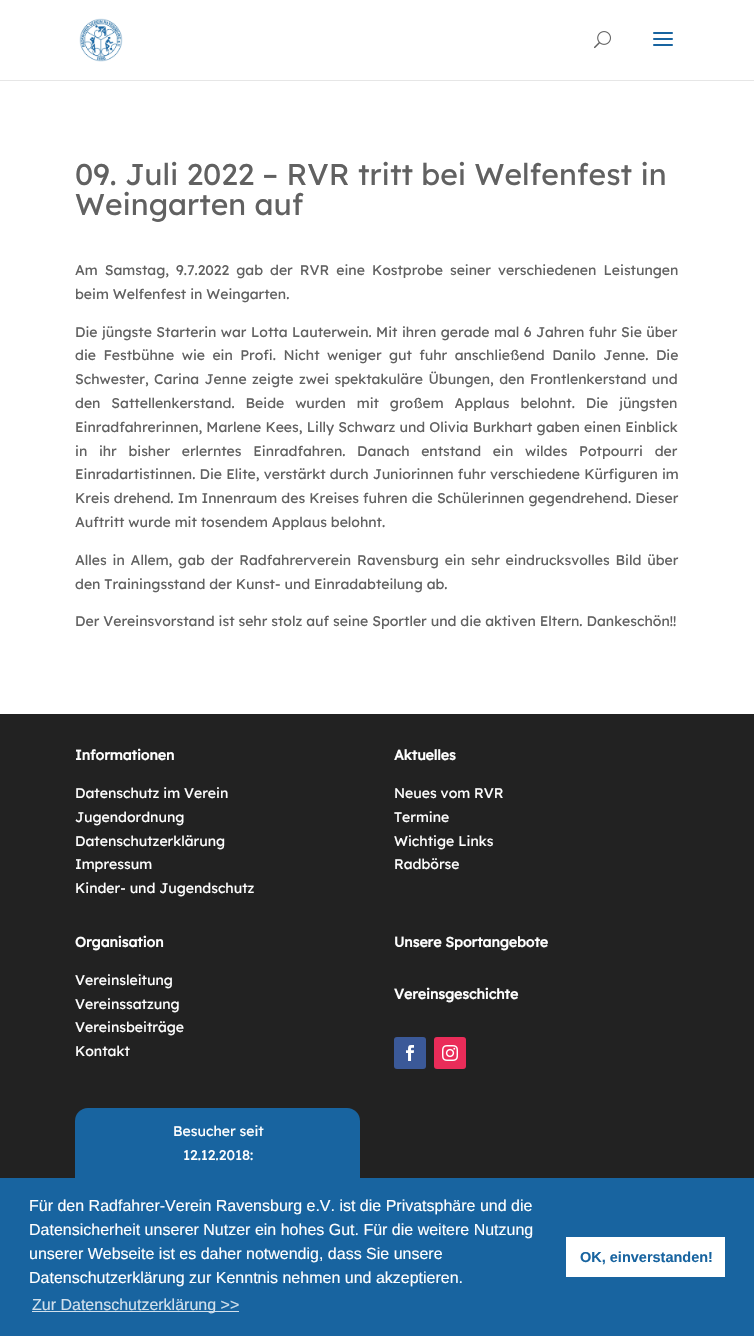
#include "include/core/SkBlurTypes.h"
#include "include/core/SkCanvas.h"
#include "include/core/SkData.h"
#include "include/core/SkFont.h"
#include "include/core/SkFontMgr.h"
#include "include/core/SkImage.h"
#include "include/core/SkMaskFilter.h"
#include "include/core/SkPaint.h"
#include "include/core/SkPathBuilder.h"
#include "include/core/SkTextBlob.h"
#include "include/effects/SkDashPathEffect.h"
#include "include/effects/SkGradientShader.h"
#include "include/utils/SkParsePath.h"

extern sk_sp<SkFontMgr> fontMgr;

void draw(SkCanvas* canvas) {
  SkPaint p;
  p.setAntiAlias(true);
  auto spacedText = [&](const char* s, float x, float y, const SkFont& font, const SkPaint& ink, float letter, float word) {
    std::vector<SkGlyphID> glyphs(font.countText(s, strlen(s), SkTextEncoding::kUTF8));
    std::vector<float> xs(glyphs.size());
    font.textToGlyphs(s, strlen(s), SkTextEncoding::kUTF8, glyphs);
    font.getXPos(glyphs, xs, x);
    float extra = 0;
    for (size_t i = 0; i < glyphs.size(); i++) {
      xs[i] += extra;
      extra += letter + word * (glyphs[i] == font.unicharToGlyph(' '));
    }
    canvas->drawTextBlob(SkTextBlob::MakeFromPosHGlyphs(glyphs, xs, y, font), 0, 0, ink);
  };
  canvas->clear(SK_ColorWHITE);
  p.setColor(SkColorSetRGB(230, 230, 230));
  canvas->drawRect(SkRect::MakeLTRB(0, 80, 754, 81), p);
  canvas->drawImageRect(SkImages::DeferredFromEncodedData(SkData::MakeFromFileName("images/1.png")), SkRect::MakeLTRB(79, 18, 123, 62), SkSamplingOptions());
  canvas->drawImageRect(SkImages::DeferredFromEncodedData(SkData::MakeFromFileName("images/2.png")), SkRect::MakeLTRB(594, 31, 611, 49), SkSamplingOptions());
  canvas->drawImageRect(SkImages::DeferredFromEncodedData(SkData::MakeFromFileName("images/3.png")), SkRect::MakeLTRB(653, 32, 673, 46), SkSamplingOptions());
  p.setColor(SkColorSetRGB(34, 34, 34));
  canvas->drawRect(SkRect::MakeLTRB(0, 714, 754, 1178), p);
  p.setColor(SkColorSetRGB(59, 89, 152));
  canvas->drawRoundRect(SkRect::MakeLTRB(394, 1037, 426, 1069), 3, 3, p);
  canvas->drawImageRect(SkImages::DeferredFromEncodedData(SkData::MakeFromFileName("images/4.png")), SkRect::MakeLTRB(406, 1045, 414, 1061), SkSamplingOptions());
  p.setColor(SkColorSetRGB(234, 44, 89));
  canvas->drawRoundRect(SkRect::MakeLTRB(434, 1037, 466, 1069), 3, 3, p);
  canvas->drawImageRect(SkImages::DeferredFromEncodedData(SkData::MakeFromFileName("images/5.png")), SkRect::MakeLTRB(442, 1045, 458, 1061), SkSamplingOptions());
  p.setColor(SkColorSetRGB(24, 100, 160));
  canvas->drawRoundRect(SkRect::MakeLTRB(75, 1108, 360, 1224), 13, 13, p);
  canvas->drawRect(SkRect::MakeLTRB(0, 1178, 754, 1336), p);
  p.setColor(SkColorSetRGB(209, 224, 236));
  canvas->drawRect(SkRect::MakeLTRB(32, 1311, 239, 1312), p);
  p.setColor(SK_ColorWHITE);
  canvas->drawRect(SkRect::MakeLTRB(566, 1237, 725, 1277), p);
  SkFont font1(fontMgr->matchFamilyStyle("Lexend", SkFontStyle::Normal()), 30);
  font1.setSubpixel(true);
  p.setColor(SkColorSetRGB(97, 97, 97));
  canvas->drawString("09. Juli 2022 – RVR tritt bei Welfenfest in", 75, 185, font1, p);
  canvas->drawString("Weingarten auf", 75, 215, font1, p);
  SkFont font2(fontMgr->matchFamilyStyle("Lexend", SkFontStyle::Normal()), 14);
  font2.setSubpixel(true);
  spacedText("Am Samstag, 9.7.2022 gab der RVR eine Kostprobe seiner verschiedenen Leistungen", 75, 275, font2, p, 0, 3.1f);
  canvas->drawString("beim Welfenfest in Weingarten.", 75, 299, font2, p);
  spacedText("Die jüngste Starterin war Lotta Lauterwein. Mit ihren gerade mal 6 Jahren fuhr Sie über", 75, 337, font2, p, 0, 0.5f);
  spacedText("die Festbühne wie ein Profi. Nicht weniger gut fuhr anschließend Danilo Jenne. Die", 75, 360, font2, p, 0, 3.5f);
  spacedText("Schwester, Carina Jenne zeigte zwei spektakuläre Übungen, den Frontlenkerstand und", 75, 384, font2, p, 0, 1.5f);
  spacedText("den Sattellenkerstand. Beide wurden mit großem Applaus belohnt. Die jüngsten", 75, 408, font2, p, 0, 7);
  spacedText("Einradfahrerinnen, Marlene Kees, Lilly Schwarz und Olivia Burkhart gaben einen Einblick", 75, 432, font2, p, 0, 0.25f);
  spacedText("in ihr bisher erlerntes Einradfahren. Danach entstand ein wildes Potpourri der", 75, 456, font2, p, 0, 7.75f);
  spacedText("Einradartistinnen. Die Elite, verstärkt durch Juniorinnen fuhr verschiedene Kürfiguren im", 75, 479, font2, p, 0, 0.25f);
  spacedText("Kreis drehend. Im Innenraum des Kreises fuhren die Schülerinnen gegendrehend. Dieser", 75, 503, font2, p, 0, 0.25f);
  canvas->drawString("Auftritt wurde mit tosendem Applaus belohnt.", 75, 527, font2, p);
  spacedText("Alles in Allem, gab der Radfahrerverein Ravensburg ein sehr eindrucksvolles Bild über", 75, 565, font2, p, 0, 1.9f);
  canvas->drawString("den Trainingsstand der Kunst- und Einradabteilung ab.", 75, 589, font2, p);
  canvas->drawString("Der Vereinsvorstand ist sehr stolz auf seine Sportler und die aktiven Eltern. Dankeschön!!", 75, 626, font2, p);
  SkFont font3(fontMgr->matchFamilyStyle("Lexend", SkFontStyle::Bold()), 14);
  font3.setSubpixel(true);
  p.setColor(SK_ColorWHITE);
  canvas->drawString("Informationen", 75, 760, font3, p);
  canvas->drawString("Datenschutz im Verein", 75, 798, font2, p);
  canvas->drawString("Jugendordnung", 75, 822, font2, p);
  canvas->drawString("Datenschutzerklärung", 75, 846, font2, p);
  canvas->drawString("Impressum", 75, 869, font2, p);
  canvas->drawString("Kinder- und Jugendschutz", 75, 893, font2, p);
  canvas->drawString("Aktuelles", 394, 760, font3, p);
  canvas->drawString("Neues vom RVR", 394, 798, font2, p);
  canvas->drawString("Termine", 394, 822, font2, p);
  canvas->drawString("Wichtige Links", 394, 846, font2, p);
  canvas->drawString("Radbörse", 394, 869, font2, p);
  canvas->drawString("Organisation", 75, 947, font3, p);
  canvas->drawString("Vereinsleitung", 75, 985, font2, p);
  canvas->drawString("Vereinssatzung", 75, 1009, font2, p);
  canvas->drawString("Vereinsbeiträge", 75, 1032, font2, p);
  canvas->drawString("Kontakt", 75, 1056, font2, p);
  canvas->drawString("Unsere Sportangebote", 394, 947, font3, p);
  canvas->drawString("Vereinsgeschichte", 394, 999, font3, p);
  canvas->drawString("Besucher seit", 173, 1136, font2, p);
  canvas->drawString("12.12.2018:", 183, 1160, font2, p);
  SkFont font4(fontMgr->matchFamilyStyle("Liberation Sans", SkFontStyle::Normal()), 16);
  font4.setSubpixel(true);
  canvas->drawString("Für den Radfahrer-Verein Ravensburg e.V. ist die Privatsphäre und die", 29, 1211, font4, p);
  canvas->drawString("Datensicherheit unserer Nutzer ein hohes Gut. Für die weitere Nutzung", 29, 1235, font4, p);
  canvas->drawString("unserer Webseite ist es daher notwendig, dass Sie unsere", 29, 1259, font4, p);
  canvas->drawString("Datenschutzerklärung zur Kenntnis nehmen und akzeptieren.", 29, 1283, font4, p);
  p.setColor(SkColorSetRGB(209, 224, 236));
  canvas->drawString("Zur Datenschutzerklärung >>", 32, 1310, font4, p);
  SkFont font5(fontMgr->matchFamilyStyle("Liberation Sans", SkFontStyle::Bold()), 14.5f);
  font5.setSubpixel(true);
  p.setColor(SkColorSetRGB(24, 100, 160));
  canvas->drawString("OK, einverstanden!", 580, 1262, font5, p);
}
